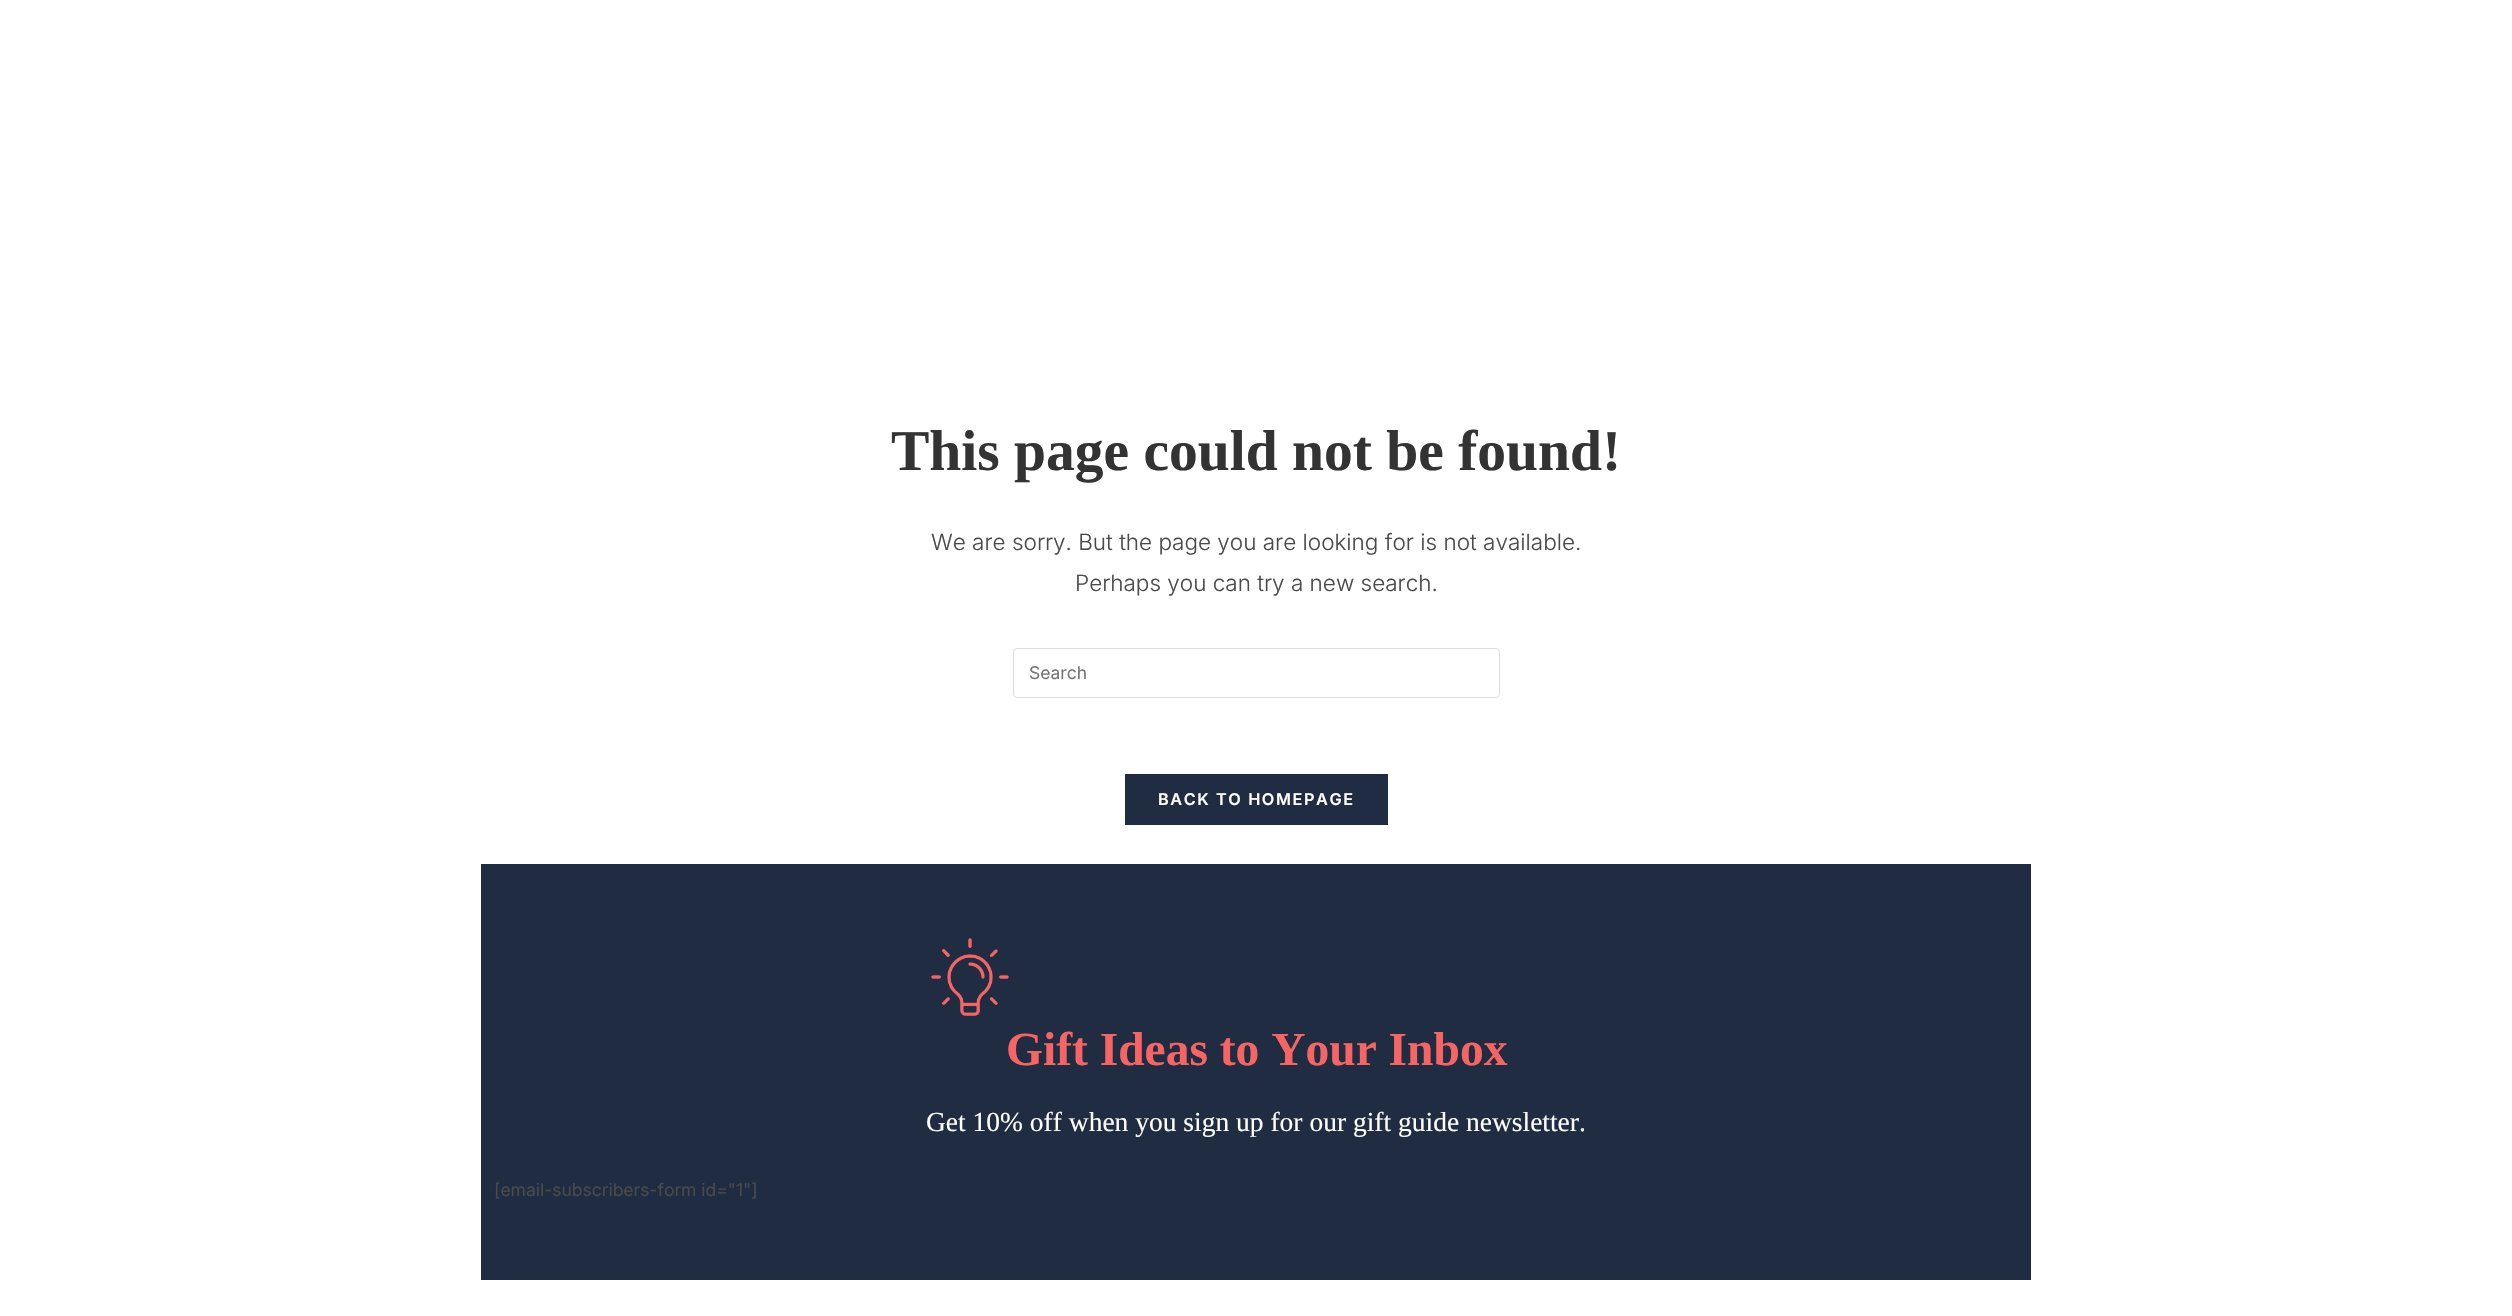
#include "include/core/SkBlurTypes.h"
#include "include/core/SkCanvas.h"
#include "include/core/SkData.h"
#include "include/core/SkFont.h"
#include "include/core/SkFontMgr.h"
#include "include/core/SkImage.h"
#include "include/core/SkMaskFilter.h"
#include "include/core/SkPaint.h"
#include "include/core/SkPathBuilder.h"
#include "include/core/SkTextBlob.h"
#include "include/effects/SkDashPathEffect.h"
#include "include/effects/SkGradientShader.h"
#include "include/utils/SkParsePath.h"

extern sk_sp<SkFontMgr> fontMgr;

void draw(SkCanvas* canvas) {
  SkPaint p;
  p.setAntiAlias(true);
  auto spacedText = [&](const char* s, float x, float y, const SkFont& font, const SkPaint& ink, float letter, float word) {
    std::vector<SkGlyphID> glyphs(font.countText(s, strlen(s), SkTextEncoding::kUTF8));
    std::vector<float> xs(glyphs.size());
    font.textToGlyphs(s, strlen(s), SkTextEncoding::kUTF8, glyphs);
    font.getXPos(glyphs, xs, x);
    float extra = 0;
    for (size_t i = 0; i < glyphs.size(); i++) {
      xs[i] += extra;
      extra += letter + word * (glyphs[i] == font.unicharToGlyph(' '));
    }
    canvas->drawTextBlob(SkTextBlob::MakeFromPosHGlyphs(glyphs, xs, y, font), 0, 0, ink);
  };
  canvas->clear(SK_ColorWHITE);
  p.setStyle(SkPaint::kStroke_Style);
  p.setStrokeWidth(1);
  p.setColor(SkColorSetRGB(221, 221, 221));
  canvas->drawRoundRect(SkRect::MakeLTRB(1013.5f, 648.5f, 1499.5f, 697.5f), 3.5f, 3.5f, p);
  p.setStyle(SkPaint::kFill_Style);
  p.setColor(SkColorSetRGB(31, 44, 65));
  canvas->drawRect(SkRect::MakeLTRB(1125, 774, 1388, 825), p);
  canvas->drawRect(SkRect::MakeLTRB(481, 864, 2031, 1280), p);
  canvas->drawImageRect(SkImages::DeferredFromEncodedData(SkData::MakeFromFileName("images/1.png")), SkRect::MakeLTRB(931, 938, 1009, 1016), SkSamplingOptions());
  SkFont font1(fontMgr->matchFamilyStyle("Liberation Serif", SkFontStyle::Bold()), 57.5f);
  font1.setSubpixel(true);
  p.setColor(SkColorSetRGB(51, 51, 51));
  canvas->drawString("This page could not be found!", 891, 470, font1, p);
  SkFont font2(fontMgr->matchFamilyStyle("Inter", SkFontStyle(300, SkFontStyle::kNormal_Width, SkFontStyle::kUpright_Slant)), 22.5f);
  font2.setSubpixel(true);
  p.setColor(SkColorSetRGB(74, 74, 74));
  canvas->drawString("We are sorry. But the page you are looking for is not available.", 931, 550, font2, p);
  canvas->drawString("Perhaps you can try a new search.", 1075, 591, font2, p);
  SkFont font3(fontMgr->matchFamilyStyle("Inter", SkFontStyle::Normal()), 17.5f);
  font3.setSubpixel(true);
  p.setColor(SkColorSetRGB(117, 117, 117));
  canvas->drawString("Search", 1029, 679, font3, p);
  SkFont font4(fontMgr->matchFamilyStyle("Inter", SkFontStyle(600, SkFontStyle::kNormal_Width, SkFontStyle::kUpright_Slant)), 16.25f);
  font4.setSubpixel(true);
  p.setColor(SK_ColorWHITE);
  spacedText("BACK TO HOMEPAGE", 1158, 805, font4, p, 1.6f, 0);
  SkFont font5(fontMgr->matchFamilyStyle("Liberation Serif", SkFontStyle::Bold()), 47.5f);
  font5.setSubpixel(true);
  p.setColor(SkColorSetRGB(247, 100, 100));
  canvas->drawString("Gift Ideas to Your Inbox", 1006, 1065, font5, p);
  SkFont font6(fontMgr->matchFamilyStyle("Liberation Serif", SkFontStyle::Normal()), 27.5f);
  font6.setSubpixel(true);
  p.setColor(SK_ColorWHITE);
  canvas->drawString("Get 10% off when you sign up for our gift guide newsletter.", 926, 1131, font6, p);
  p.setColor(SkColorSetRGB(74, 74, 74));
  canvas->drawString("[email-subscribers-form id=\"1\"]", 494, 1196, font3, p);
}
